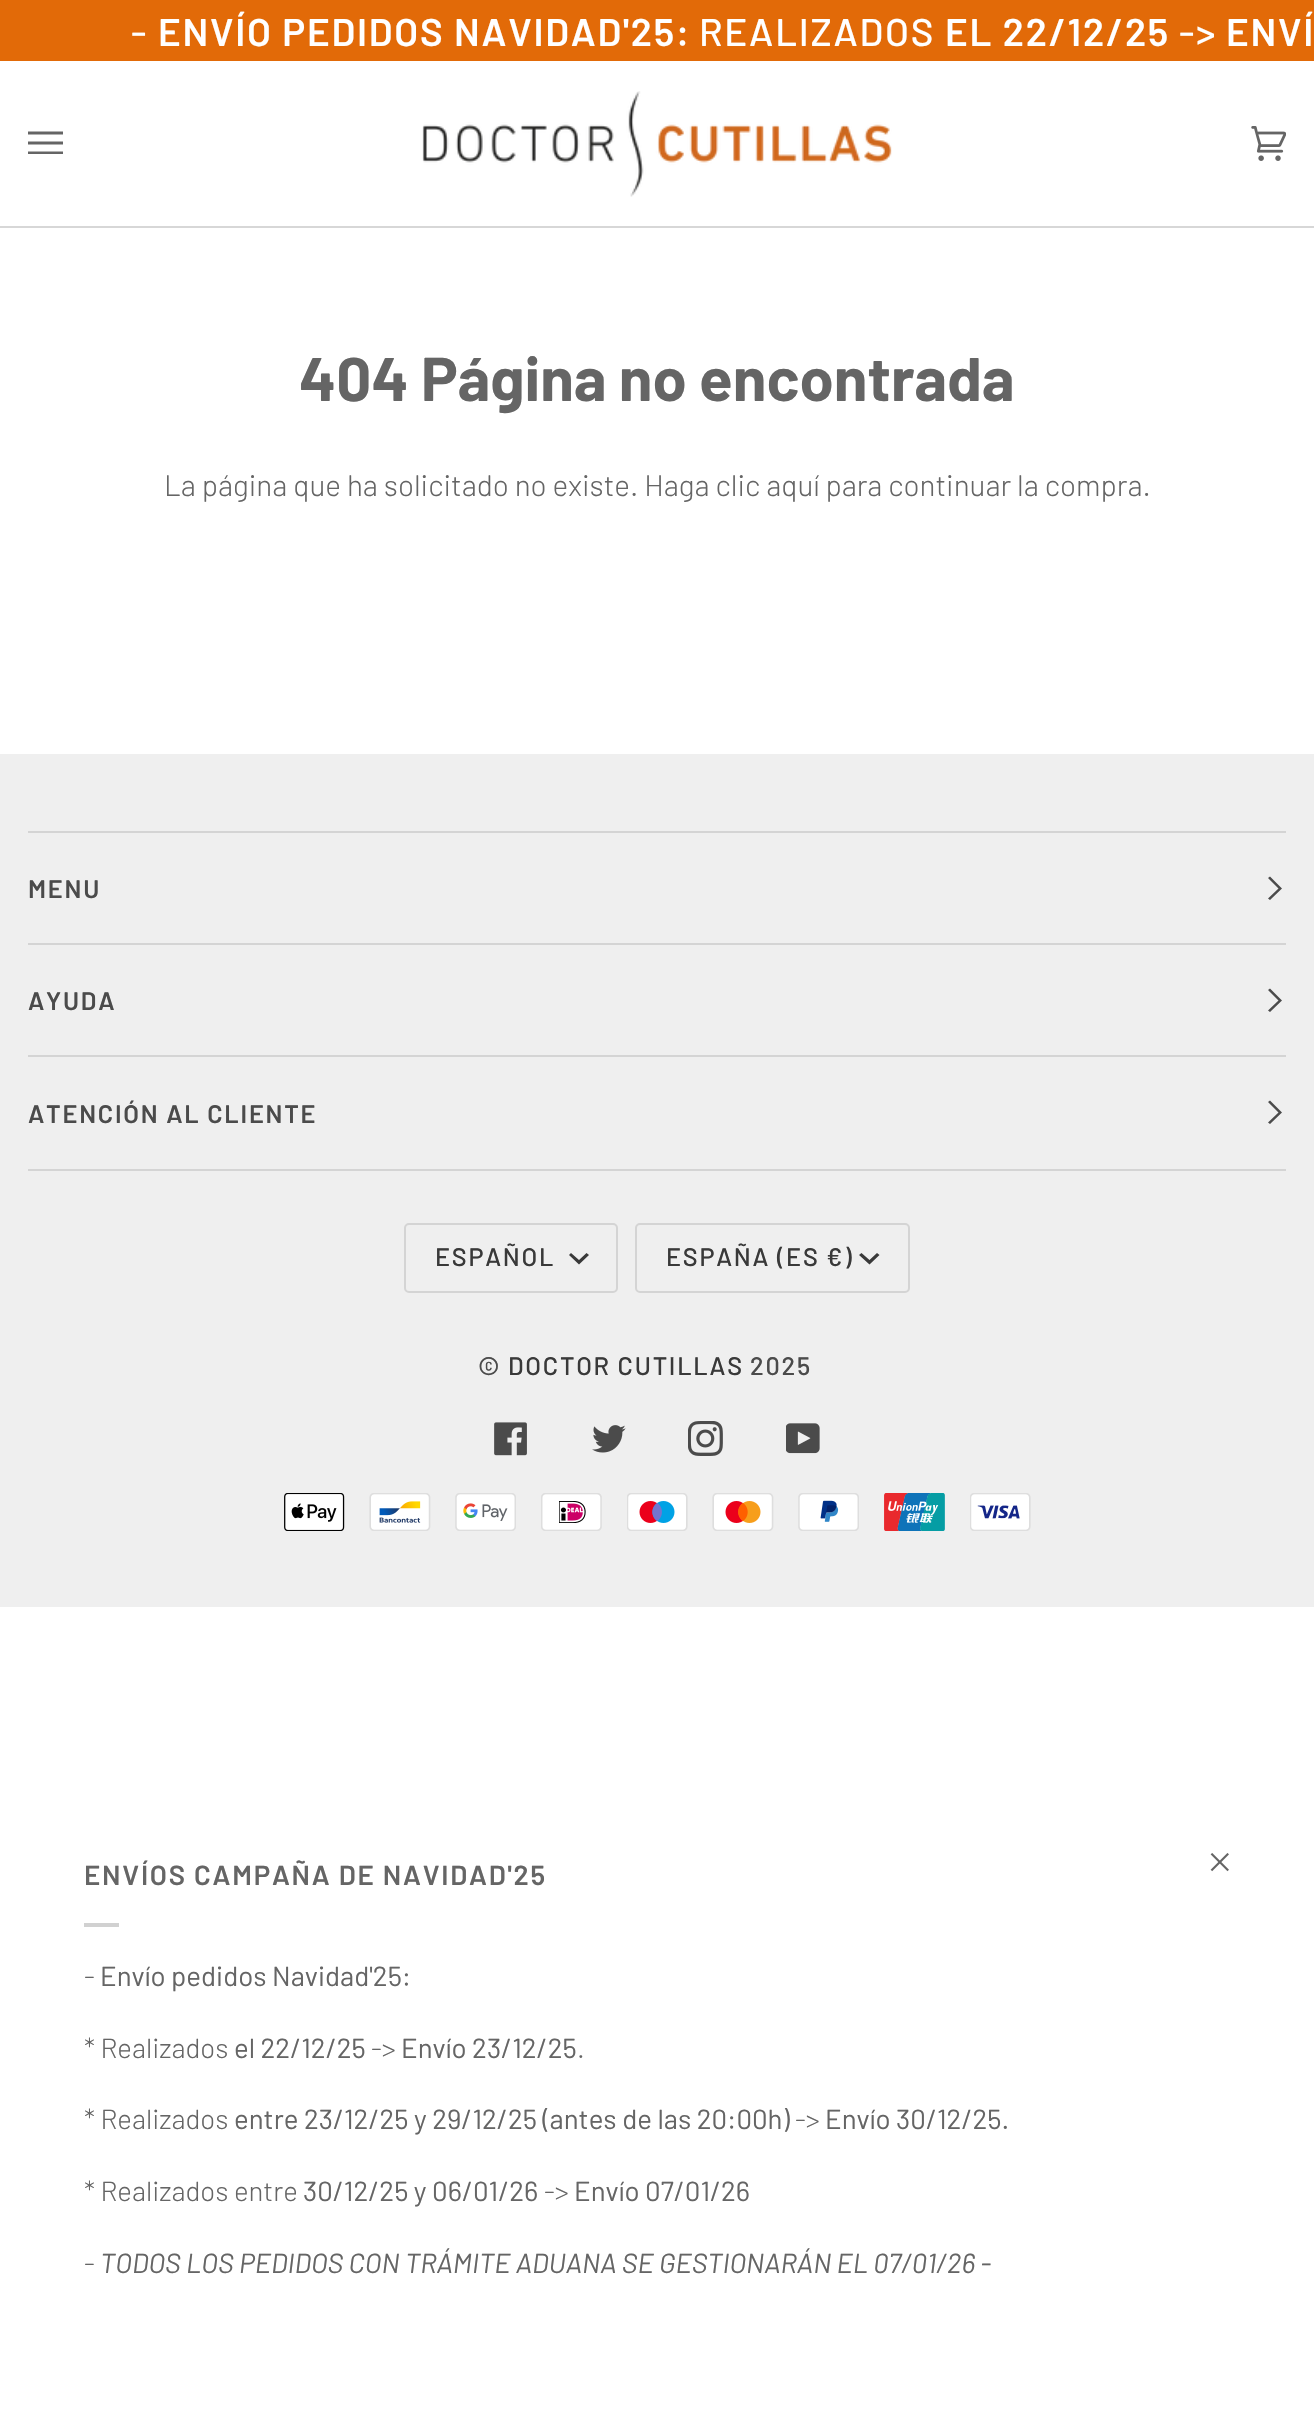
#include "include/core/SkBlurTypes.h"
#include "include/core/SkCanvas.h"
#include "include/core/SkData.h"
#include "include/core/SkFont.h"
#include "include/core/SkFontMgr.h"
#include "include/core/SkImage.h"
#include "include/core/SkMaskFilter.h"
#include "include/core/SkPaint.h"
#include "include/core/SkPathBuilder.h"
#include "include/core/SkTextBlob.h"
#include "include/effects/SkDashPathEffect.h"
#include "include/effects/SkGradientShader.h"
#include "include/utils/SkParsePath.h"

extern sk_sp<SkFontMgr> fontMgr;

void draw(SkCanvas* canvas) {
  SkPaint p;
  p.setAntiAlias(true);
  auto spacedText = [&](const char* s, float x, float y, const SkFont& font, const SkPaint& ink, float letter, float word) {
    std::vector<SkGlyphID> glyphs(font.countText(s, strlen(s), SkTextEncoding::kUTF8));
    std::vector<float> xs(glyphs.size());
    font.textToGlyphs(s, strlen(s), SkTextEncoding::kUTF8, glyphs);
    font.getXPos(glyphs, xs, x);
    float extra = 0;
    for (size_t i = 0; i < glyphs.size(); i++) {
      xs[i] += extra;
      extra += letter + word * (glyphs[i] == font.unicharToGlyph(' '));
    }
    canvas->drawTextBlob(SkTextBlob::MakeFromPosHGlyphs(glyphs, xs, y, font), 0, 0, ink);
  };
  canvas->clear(SK_ColorWHITE);
  p.setColor(SkColorSetRGB(226, 106, 8));
  canvas->drawRect(SkRect::MakeLTRB(0, 0, 1314, 61), p);
  p.setColor(SkColorSetRGB(215, 215, 215));
  canvas->drawRect(SkRect::MakeLTRB(0, 226, 1314, 228), p);
  p.setColor(SkColorSetRGB(101, 101, 101));
  canvas->drawPath(SkPathBuilder().moveTo(28, 131.5f).lineTo(63, 131.5f).lineTo(63, 134.5f).lineTo(28, 134.5f).close().moveTo(28, 141.5f).lineTo(63, 141.5f).lineTo(63, 144.5f).lineTo(28, 144.5f).close().moveTo(28, 151.5f).lineTo(63, 151.5f).lineTo(63, 154).lineTo(28, 154).close().detach(), p);
  canvas->drawImageRect(SkImages::DeferredFromEncodedData(SkData::MakeFromFileName("images/1.png")), SkRect::MakeLTRB(422, 91, 892, 197), SkSamplingOptions());
  canvas->drawImageRect(SkImages::DeferredFromEncodedData(SkData::MakeFromFileName("images/2.png")), SkRect::MakeLTRB(1251, 126, 1286, 161), SkSamplingOptions());
  p.setColor(SkColorSetRGB(239, 239, 239));
  canvas->drawRect(SkRect::MakeLTRB(0, 754, 1314, 1607), p);
  p.setColor(SkColorSetRGB(212, 212, 212));
  canvas->drawRect(SkRect::MakeLTRB(28, 831, 1286, 833), p);
  canvas->drawRect(SkRect::MakeLTRB(28, 943, 1286, 945), p);
  p.setColor(SkColorSetRGB(75, 75, 75));
  canvas->drawPath(SkPathBuilder(SkPathFillType::kEvenOdd).moveTo(1278.5f, 888.5f).lineTo(1268, 878).lineTo(1270, 876.5f).lineTo(1282, 888.5f).lineTo(1270, 900).lineTo(1268, 898.5f).close().detach(), p);
  p.setColor(SkColorSetRGB(212, 212, 212));
  canvas->drawRect(SkRect::MakeLTRB(28, 1055, 1286, 1057), p);
  p.setColor(SkColorSetRGB(75, 75, 75));
  canvas->drawPath(SkPathBuilder(SkPathFillType::kEvenOdd).moveTo(1278.5f, 1000.5f).lineTo(1268, 990).lineTo(1270, 988.5f).lineTo(1282, 1000.5f).lineTo(1270, 1012).lineTo(1268, 1010.5f).close().detach(), p);
  p.setColor(SkColorSetRGB(212, 212, 212));
  canvas->drawRect(SkRect::MakeLTRB(28, 1169, 1286, 1171), p);
  p.setColor(SkColorSetRGB(75, 75, 75));
  canvas->drawPath(SkPathBuilder(SkPathFillType::kEvenOdd).moveTo(1278.5f, 1112.5f).lineTo(1268, 1102).lineTo(1270, 1100.5f).lineTo(1282, 1112.5f).lineTo(1270, 1124).lineTo(1268, 1122.5f).close().detach(), p);
  p.setStyle(SkPaint::kStroke_Style);
  p.setStrokeWidth(2);
  p.setColor(SkColorSetRGB(212, 212, 212));
  canvas->drawRoundRect(SkRect::MakeLTRB(405, 1224, 617, 1292), 4, 4, p);
  p.setStyle(SkPaint::kFill_Style);
  p.setColor(SkColorSetRGB(57, 57, 57));
  canvas->drawPath(SkPathBuilder(SkPathFillType::kEvenOdd).moveTo(569, 1255).lineTo(571, 1253).lineTo(579, 1260).lineTo(586.5f, 1253).lineTo(589, 1255).lineTo(579, 1264.5f).close().detach(), p);
  p.setStyle(SkPaint::kStroke_Style);
  p.setColor(SkColorSetRGB(212, 212, 212));
  canvas->drawRoundRect(SkRect::MakeLTRB(636, 1224, 909, 1292), 4, 4, p);
  p.setStyle(SkPaint::kFill_Style);
  p.setColor(SkColorSetRGB(57, 57, 57));
  canvas->drawPath(SkPathBuilder(SkPathFillType::kEvenOdd).moveTo(859, 1255).lineTo(861.5f, 1253).lineTo(869.5f, 1260).lineTo(877, 1253).lineTo(879.5f, 1255).lineTo(869.5f, 1264.5f).close().detach(), p);
  canvas->drawImageRect(SkImages::DeferredFromEncodedData(SkData::MakeFromFileName("images/3.png")), SkRect::MakeLTRB(494, 1422, 527, 1456), SkSamplingOptions());
  canvas->drawImageRect(SkImages::DeferredFromEncodedData(SkData::MakeFromFileName("images/4.png")), SkRect::MakeLTRB(592, 1425, 626, 1453), SkSamplingOptions());
  canvas->drawImageRect(SkImages::DeferredFromEncodedData(SkData::MakeFromFileName("images/5.png")), SkRect::MakeLTRB(688, 1421, 723, 1456), SkSamplingOptions());
  canvas->drawImageRect(SkImages::DeferredFromEncodedData(SkData::MakeFromFileName("images/6.png")), SkRect::MakeLTRB(786, 1423, 820, 1454), SkSamplingOptions());
  canvas->drawImageRect(SkImages::DeferredFromEncodedData(SkData::MakeFromFileName("images/7.png")), SkRect::MakeLTRB(284, 1493, 345, 1531), SkSamplingOptions());
  canvas->drawImageRect(SkImages::DeferredFromEncodedData(SkData::MakeFromFileName("images/8.png")), SkRect::MakeLTRB(369, 1493, 431, 1531), SkSamplingOptions());
  canvas->drawImageRect(SkImages::DeferredFromEncodedData(SkData::MakeFromFileName("images/9.png")), SkRect::MakeLTRB(455, 1493, 516, 1531), SkSamplingOptions());
  canvas->drawImageRect(SkImages::DeferredFromEncodedData(SkData::MakeFromFileName("images/10.png")), SkRect::MakeLTRB(541, 1493, 602, 1531), SkSamplingOptions());
  canvas->drawImageRect(SkImages::DeferredFromEncodedData(SkData::MakeFromFileName("images/11.png")), SkRect::MakeLTRB(627, 1493, 688, 1531), SkSamplingOptions());
  canvas->drawImageRect(SkImages::DeferredFromEncodedData(SkData::MakeFromFileName("images/12.png")), SkRect::MakeLTRB(712, 1493, 774, 1531), SkSamplingOptions());
  canvas->drawImageRect(SkImages::DeferredFromEncodedData(SkData::MakeFromFileName("images/13.png")), SkRect::MakeLTRB(798, 1493, 859, 1531), SkSamplingOptions());
  canvas->drawImageRect(SkImages::DeferredFromEncodedData(SkData::MakeFromFileName("images/14.png")), SkRect::MakeLTRB(884, 1493, 945, 1531), SkSamplingOptions());
  canvas->drawImageRect(SkImages::DeferredFromEncodedData(SkData::MakeFromFileName("images/15.png")), SkRect::MakeLTRB(970, 1493, 1031, 1531), SkSamplingOptions());
  canvas->drawImageRect(SkImages::DeferredFromEncodedData(SkData::MakeFromFileName("images/16.png")), SkRect::MakeLTRB(1210, 1853, 1229, 1872), SkSamplingOptions());
  p.setColor(SkColorSetRGB(209, 209, 209));
  canvas->drawRect(SkRect::MakeLTRB(84, 1923, 119, 1927), p);
  SkFont font1(fontMgr->matchFamilyStyle("Barlow", SkFontStyle(500, SkFontStyle::kNormal_Width, SkFontStyle::kUpright_Slant)), 38.5f);
  font1.setSubpixel(true);
  p.setColor(SK_ColorWHITE);
  spacedText("-", 131, 46, font1, p, 1.75f, 0);
  SkFont font2(fontMgr->matchFamilyStyle("Barlow", SkFontStyle(600, SkFontStyle::kNormal_Width, SkFontStyle::kUpright_Slant)), 38.5f);
  font2.setSubpixel(true);
  spacedText("ENVÍO PEDIDOS NAVIDAD'25:", 158, 46, font2, p, 1.75f, 0);
  spacedText("REALIZADOS", 699, 46, font1, p, 1.75f, 0);
  spacedText("EL 22/12/25", 945, 46, font2, p, 1.75f, 0);
  spacedText("->", 1179, 46, font1, p, 1.75f, 0);
  spacedText("ENVÍ", 1226, 46, font2, p, 1.75f, 0);
  SkFont font3(fontMgr->matchFamilyStyle("Barlow", SkFontStyle::Bold()), 61.6f);
  font3.setSubpixel(true);
  p.setColor(SkColorSetRGB(101, 101, 101));
  canvas->drawString("404 Página no encontrada", 299, 401, font3, p);
  SkFont font4(fontMgr->matchFamilyStyle("Barlow", SkFontStyle(300, SkFontStyle::kNormal_Width, SkFontStyle::kUpright_Slant)), 29.65f);
  font4.setSubpixel(true);
  canvas->drawString("La página que ha solicitado no existe. Haga clic aquí para continuar la compra.", 164, 496, font4, p);
  SkFont font5(fontMgr->matchFamilyStyle("Barlow", SkFontStyle(600, SkFontStyle::kNormal_Width, SkFontStyle::kUpright_Slant)), 25.25f);
  font5.setSubpixel(true);
  p.setColor(SkColorSetRGB(75, 75, 75));
  spacedText("MENU", 28, 898, font5, p, 1.75f, 0);
  spacedText("AYUDA", 28, 1010, font5, p, 1.75f, 0);
  spacedText("ATENCIÓN AL CLIENTE", 28, 1123, font5, p, 1.75f, 0);
  SkFont font6(fontMgr->matchFamilyStyle("Barlow", SkFontStyle(500, SkFontStyle::kNormal_Width, SkFontStyle::kUpright_Slant)), 25.25f);
  font6.setSubpixel(true);
  p.setColor(SkColorSetRGB(57, 57, 57));
  spacedText("ESPAÑOL", 435, 1266, font6, p, 1.75f, 0);
  spacedText("ESPAÑA (ES €)", 666, 1266, font6, p, 1.75f, 0);
  p.setColor(SkColorSetRGB(75, 75, 75));
  spacedText("©", 478, 1375, font6, p, 1.75f, 0);
  p.setColor(SkColorSetRGB(57, 57, 57));
  spacedText("DOCTOR CUTILLAS", 508, 1375, font6, p, 1.75f, 0);
  p.setColor(SkColorSetRGB(75, 75, 75));
  spacedText("2025", 750, 1375, font6, p, 1.75f, 0);
  SkFont font7(fontMgr->matchFamilyStyle("Barlow", SkFontStyle(600, SkFontStyle::kNormal_Width, SkFontStyle::kUpright_Slant)), 27.6f);
  font7.setSubpixel(true);
  p.setColor(SkColorSetRGB(101, 101, 101));
  spacedText("ENVÍOS CAMPAÑA DE NAVIDAD'25", 84, 1885, font7, p, 1.75f, 0);
  SkFont font8(fontMgr->matchFamilyStyle("Barlow", SkFontStyle(300, SkFontStyle::kNormal_Width, SkFontStyle::kUpright_Slant)), 27.6f);
  font8.setSubpixel(true);
  canvas->drawString("-", 84, 1986, font8, p);
  SkFont font9(fontMgr->matchFamilyStyle("Barlow", SkFontStyle::Normal()), 27.6f);
  font9.setSubpixel(true);
  canvas->drawString("Envío pedidos Navidad'25:", 100, 1986, font9, p);
  canvas->drawString("* Realizados", 84, 2058, font8, p);
  canvas->drawString("el 22/12/25", 234, 2058, font9, p);
  canvas->drawString("->", 371, 2058, font8, p);
  canvas->drawString("Envío 23/12/25", 401, 2058, font9, p);
  canvas->drawString(".", 577, 2058, font8, p);
  canvas->drawString("* Realizados", 84, 2129, font8, p);
  canvas->drawString("entre 23/12/25 y 29/12/25 (antes de las 20:00h)", 234, 2129, font9, p);
  canvas->drawString("->", 795, 2129, font8, p);
  canvas->drawString("Envío 30/12/25.", 825, 2129, font9, p);
  canvas->drawString("* Realizados entre", 84, 2201, font8, p);
  canvas->drawString("30/12/25 y 06/01/26", 303, 2201, font9, p);
  canvas->drawString("->", 544, 2201, font8, p);
  canvas->drawString("Envío 07/01/26", 574, 2201, font9, p);
  canvas->drawString("-", 84, 2273, font8, p);
  SkFont font10(fontMgr->matchFamilyStyle("Barlow", SkFontStyle::Italic()), 27.6f);
  font10.setSubpixel(true);
  canvas->drawString("TODOS LOS PEDIDOS CON TRÁMITE ADUANA SE GESTIONARÁN EL 07/01/26 -", 100, 2273, font10, p);
}
